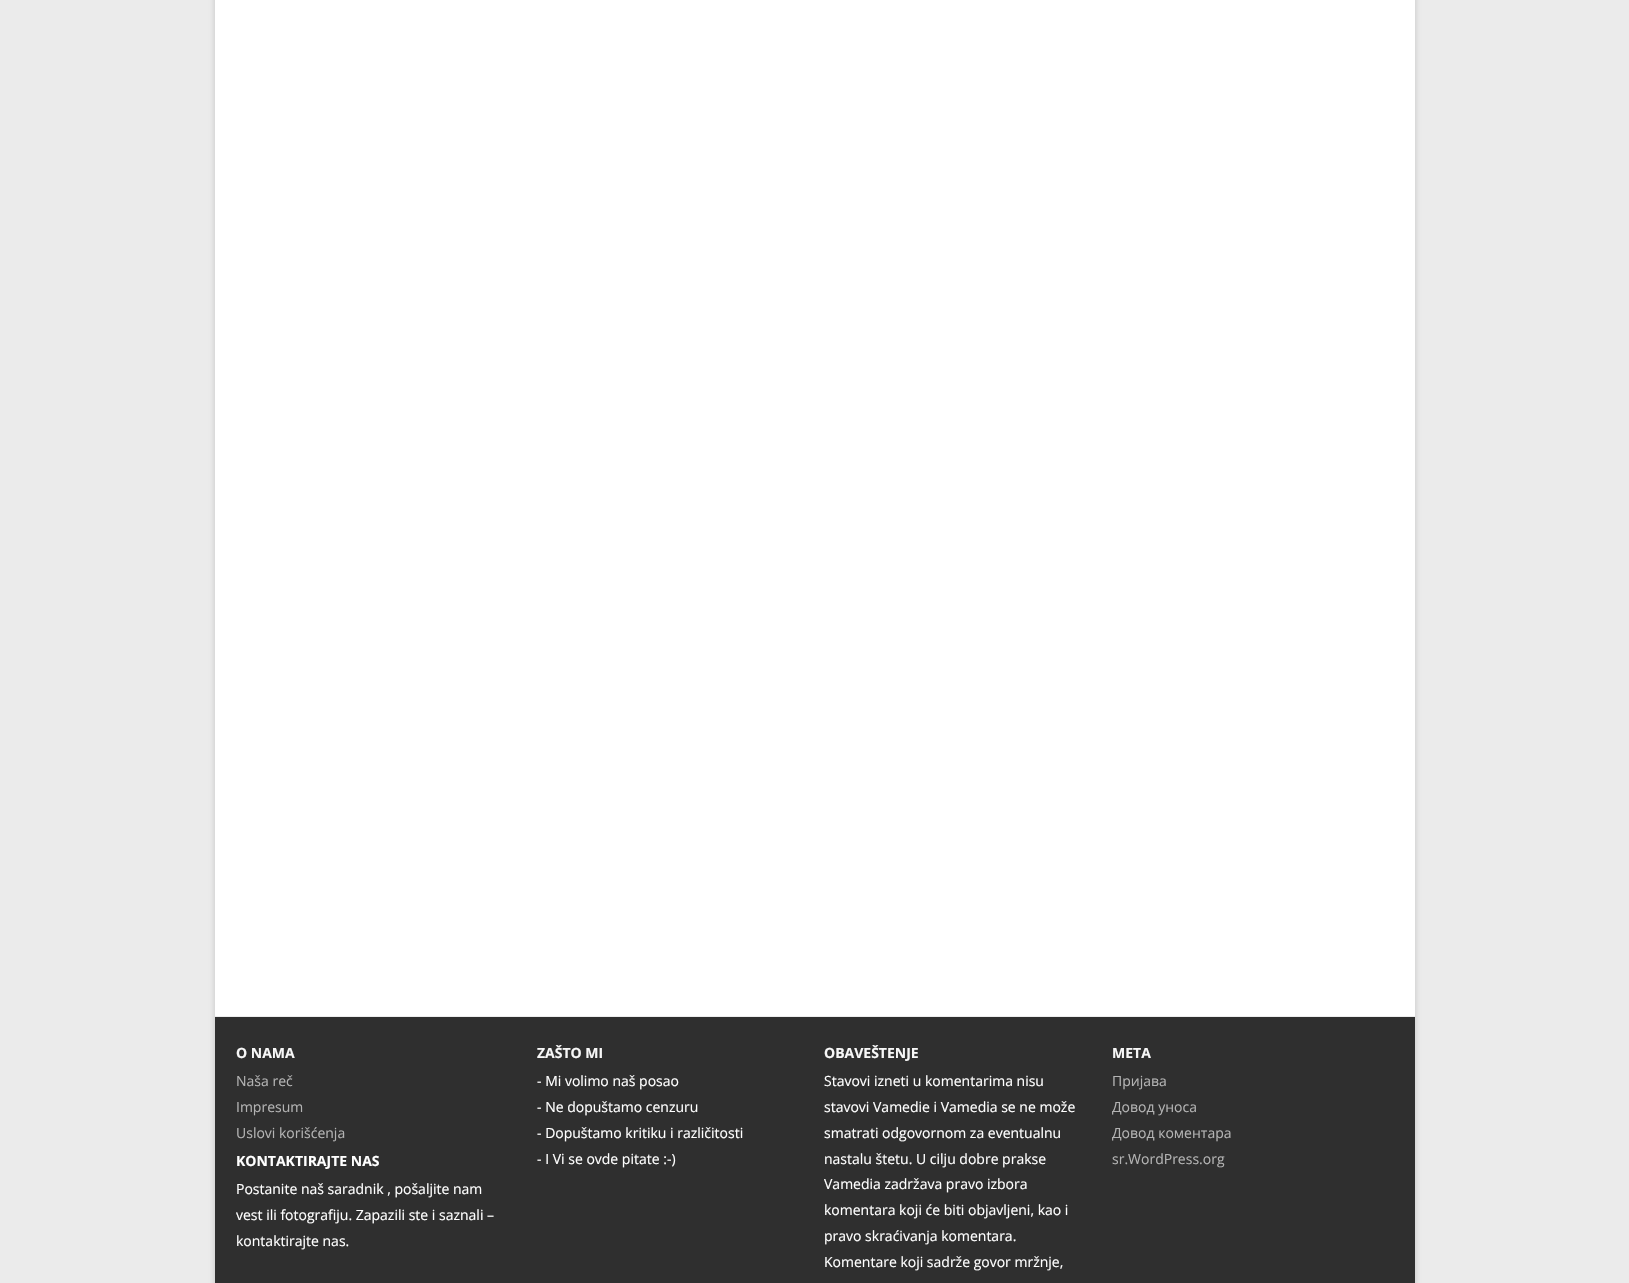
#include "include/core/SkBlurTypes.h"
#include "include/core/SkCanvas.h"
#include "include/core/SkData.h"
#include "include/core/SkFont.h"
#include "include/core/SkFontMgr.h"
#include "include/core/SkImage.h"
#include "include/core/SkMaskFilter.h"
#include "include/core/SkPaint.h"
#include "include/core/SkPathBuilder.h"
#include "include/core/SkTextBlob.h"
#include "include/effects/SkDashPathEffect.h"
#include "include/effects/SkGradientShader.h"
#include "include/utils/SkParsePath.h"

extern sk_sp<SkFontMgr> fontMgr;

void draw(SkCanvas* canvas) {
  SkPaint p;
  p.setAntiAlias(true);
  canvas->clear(SkColorSetRGB(235, 235, 235));
  p.setColor(SkColorSetARGB(77, 100, 100, 100));
  p.setMaskFilter(SkMaskFilter::MakeBlur(kNormal_SkBlurStyle, 3));
  canvas->drawRect(SkRect::MakeLTRB(215, -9, 1415, 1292), p);
  p.setMaskFilter(nullptr);
  p.setColor(SK_ColorWHITE);
  canvas->drawRect(SkRect::MakeLTRB(215, 0, 1415, 1016), p);
  p.setColor(SkColorSetRGB(237, 237, 237));
  canvas->drawRect(SkRect::MakeLTRB(215, 1016, 1415, 1017), p);
  p.setColor(SkColorSetRGB(47, 47, 47));
  canvas->drawRect(SkRect::MakeLTRB(215, 1017, 1415, 1283), p);
  SkFont font1(fontMgr->matchFamilyStyle("Open Sans", SkFontStyle::Bold()), 14);
  font1.setSubpixel(true);
  p.setColor(SkColorSetRGB(247, 247, 247));
  canvas->drawString("O NAMA", 236, 1058, font1, p);
  SkFont font2(fontMgr->matchFamilyStyle("Open Sans", SkFontStyle::Normal()), 14);
  font2.setSubpixel(true);
  p.setColor(SkColorSetRGB(179, 179, 179));
  canvas->drawString("Naša reč", 236, 1086, font2, p);
  canvas->drawString("Impresum", 236, 1112, font2, p);
  canvas->drawString("Uslovi korišćenja", 236, 1138, font2, p);
  p.setColor(SK_ColorWHITE);
  canvas->drawString("KONTAKTIRAJTE NAS", 236, 1166, font1, p);
  canvas->drawString("Postanite naš saradnik , pošaljite nam", 236, 1194, font2, p);
  canvas->drawString("vest ili fotografiju. Zapazili ste i saznali –", 236, 1220, font2, p);
  canvas->drawString("kontaktirajte nas.", 236, 1246, font2, p);
  p.setColor(SkColorSetRGB(247, 247, 247));
  canvas->drawString("ZAŠTO MI", 537, 1058, font1, p);
  p.setColor(SK_ColorWHITE);
  canvas->drawString("- Mi volimo naš posao", 537, 1086, font2, p);
  canvas->drawString("- Ne dopuštamo cenzuru", 537, 1112, font2, p);
  canvas->drawString("- Dopuštamo kritiku i različitosti", 537, 1138, font2, p);
  canvas->drawString("- I Vi se ovde pitate :-)", 537, 1164, font2, p);
  p.setColor(SkColorSetRGB(247, 247, 247));
  canvas->drawString("OBAVEŠTENJE", 824, 1058, font1, p);
  p.setColor(SK_ColorWHITE);
  canvas->drawString("Stavovi izneti u komentarima nisu", 824, 1086, font2, p);
  canvas->drawString("stavovi Vamedie i Vamedia se ne može", 824, 1112, font2, p);
  canvas->drawString("smatrati odgovornom za eventualnu", 824, 1138, font2, p);
  canvas->drawString("nastalu štetu. U cilju dobre prakse", 824, 1164, font2, p);
  canvas->drawString("Vamedia zadržava pravo izbora", 824, 1189, font2, p);
  canvas->drawString("komentara koji će biti objavljeni, kao i", 824, 1215, font2, p);
  canvas->drawString("pravo skraćivanja komentara.", 824, 1241, font2, p);
  canvas->drawString("Komentare koji sadrže govor mržnje,", 824, 1267, font2, p);
  p.setColor(SkColorSetRGB(247, 247, 247));
  canvas->drawString("META", 1112, 1058, font1, p);
  p.setColor(SkColorSetRGB(179, 179, 179));
  canvas->drawString("Пријава", 1112, 1086, font2, p);
  canvas->drawString("Довод уноса", 1112, 1112, font2, p);
  canvas->drawString("Довод коментара", 1112, 1138, font2, p);
  canvas->drawString("sr.WordPress.org", 1112, 1164, font2, p);
}
